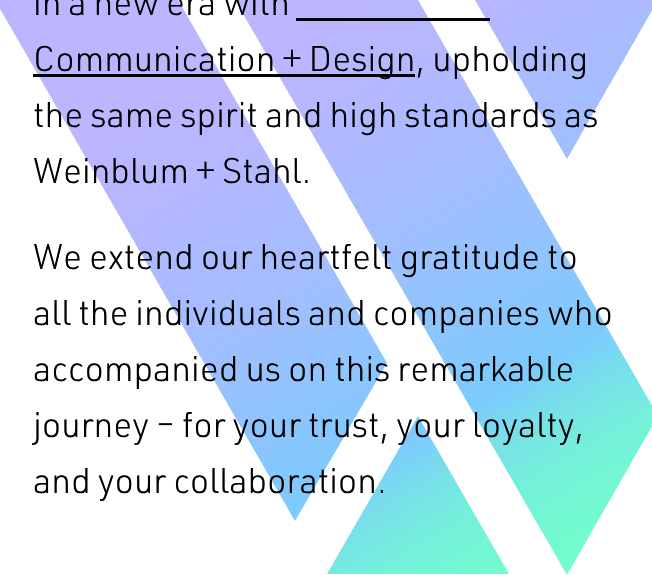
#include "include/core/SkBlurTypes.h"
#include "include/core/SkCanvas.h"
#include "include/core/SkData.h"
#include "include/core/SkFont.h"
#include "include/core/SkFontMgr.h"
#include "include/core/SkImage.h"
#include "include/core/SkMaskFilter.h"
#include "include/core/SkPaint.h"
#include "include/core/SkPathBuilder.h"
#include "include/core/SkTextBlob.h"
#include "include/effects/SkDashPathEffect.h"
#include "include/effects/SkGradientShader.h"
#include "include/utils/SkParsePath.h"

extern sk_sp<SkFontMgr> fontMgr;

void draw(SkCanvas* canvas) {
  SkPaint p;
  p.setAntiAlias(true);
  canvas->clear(SK_ColorWHITE);
  {
    const SkColor colors[] = {SkColorSetRGB(188, 181, 255), SkColorSetRGB(181, 183, 255), SkColorSetRGB(161, 190, 254), SkColorSetRGB(129, 201, 253), SkColorSetRGB(124, 203, 253), SkColorSetRGB(120, 222, 235), SkColorSetRGB(117, 240, 218), SkColorSetRGB(115, 251, 207), SkColorSetRGB(114, 255, 204)};
    const float stops[] = {0.18f, 0.3f, 0.48f, 0.69f, 0.72f, 0.77f, 0.84f, 0.92f, 1};
    const SkPoint ends[] = {{254, -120}, {650, 557}};
    p.setShader(SkGradientShader::MakeLinear(ends, colors, stops, 9, SkTileMode::kClamp));
    p.setAlpha(255);
  }
  canvas->drawPath(SkPathBuilder().moveTo(418, 416).lineTo(327, 574).lineTo(509, 574).close().moveTo(387, 363).lineTo(178, 0).lineTo(-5, 0).lineTo(295, 521).close().moveTo(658, 416).lineTo(418, 0).lineTo(235, 0).lineTo(567, 575).close().moveTo(567, 159).lineTo(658, 0).lineTo(475, 0).close().detach(), p);
  p.setShader(nullptr);
  p.setColor(SK_ColorBLACK);
  canvas->drawRect(SkRect::MakeLTRB(296, 18, 490, 21), p);
  canvas->drawRect(SkRect::MakeLTRB(33, 74, 415, 77), p);
  SkFont font1(fontMgr->matchFamilyStyle("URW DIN", SkFontStyle(300, SkFontStyle::kNormal_Width, SkFontStyle::kUpright_Slant)), 35);
  font1.setSubpixel(true);
  canvas->drawString("in a new era with", 33, 15, font1, p);
  canvas->drawString("Communication + Design, upholding", 33, 71, font1, p);
  canvas->drawString("the same spirit and high standards as", 33, 127, font1, p);
  canvas->drawString("Weinblum + Stahl.", 33, 183, font1, p);
  canvas->drawString("We extend our heartfelt gratitude to", 33, 269, font1, p);
  canvas->drawString("all the individuals and companies who", 33, 325, font1, p);
  canvas->drawString("accompanied us on this remarkable", 33, 381, font1, p);
  canvas->drawString("journey – for your trust, your loyalty,", 33, 437, font1, p);
  canvas->drawString("and your collaboration.", 33, 493, font1, p);
}
